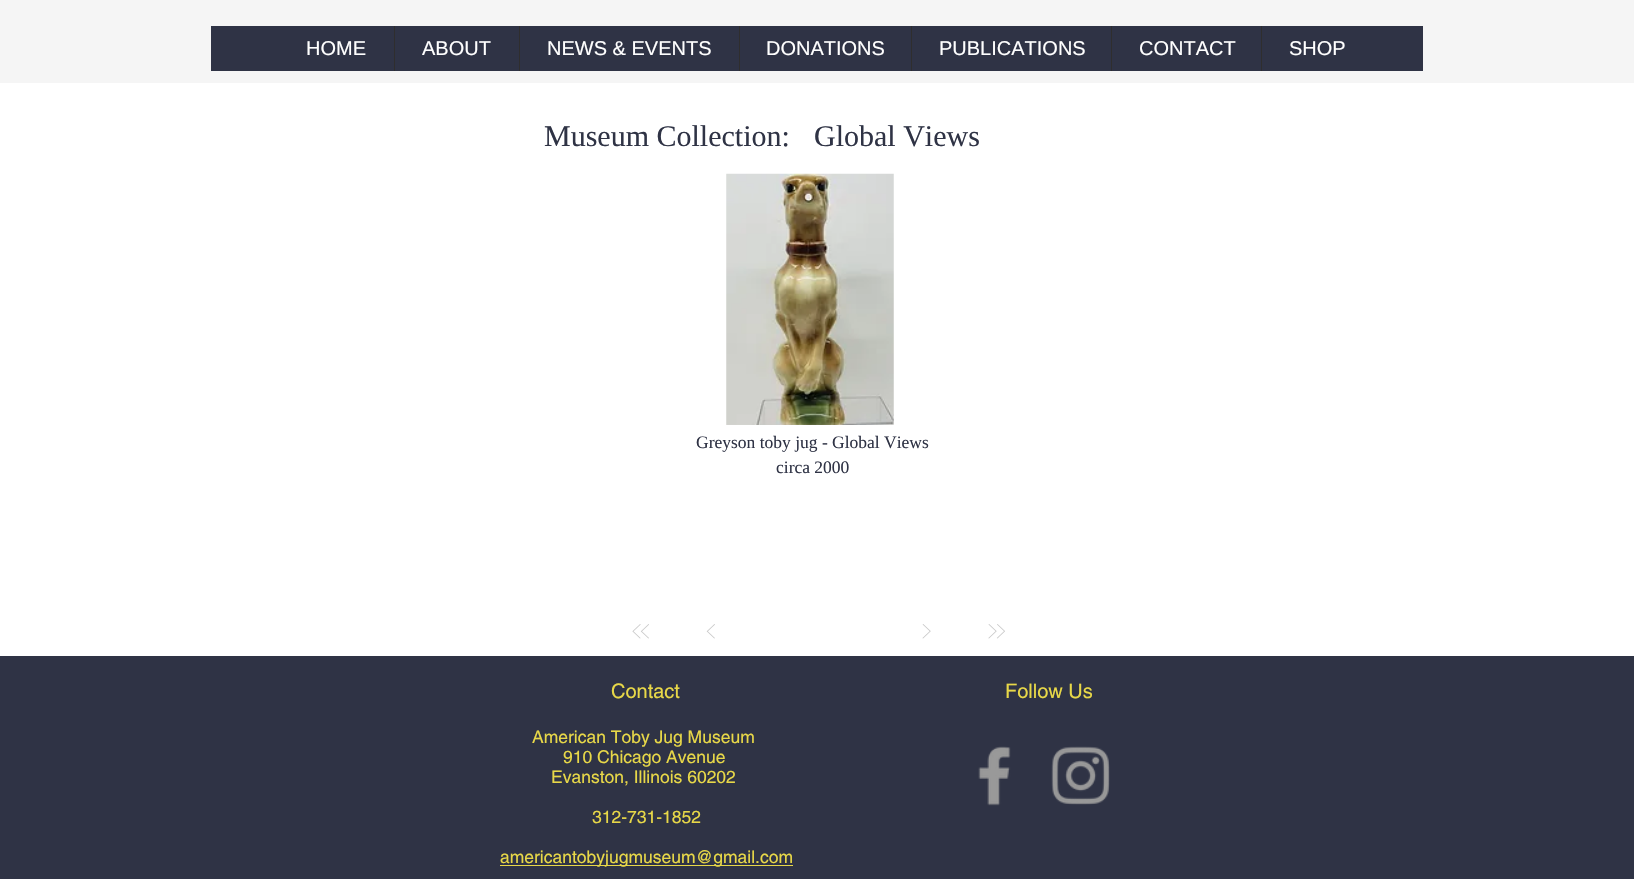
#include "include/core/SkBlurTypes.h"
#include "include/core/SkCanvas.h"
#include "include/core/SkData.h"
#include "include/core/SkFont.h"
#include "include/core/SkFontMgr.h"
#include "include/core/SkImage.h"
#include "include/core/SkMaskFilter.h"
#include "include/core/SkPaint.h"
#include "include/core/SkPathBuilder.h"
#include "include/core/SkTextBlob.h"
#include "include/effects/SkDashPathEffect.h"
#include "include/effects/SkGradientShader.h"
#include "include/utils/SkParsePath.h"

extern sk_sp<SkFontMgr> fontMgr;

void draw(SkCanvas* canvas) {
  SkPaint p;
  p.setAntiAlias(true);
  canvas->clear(SK_ColorWHITE);
  p.setColor(SkColorSetRGB(245, 245, 245));
  canvas->drawRect(SkRect::MakeLTRB(0, 0, 1634, 83), p);
  p.setColor(SkColorSetRGB(47, 51, 69));
  canvas->drawRect(SkRect::MakeLTRB(211, 26, 1423, 71), p);
  p.setColor(SkColorSetRGB(47, 46, 46));
  canvas->drawRect(SkRect::MakeLTRB(394, 26, 395, 71), p);
  canvas->drawRect(SkRect::MakeLTRB(519, 26, 520, 71), p);
  canvas->drawRect(SkRect::MakeLTRB(739, 26, 740, 71), p);
  canvas->drawRect(SkRect::MakeLTRB(911, 26, 912, 71), p);
  canvas->drawRect(SkRect::MakeLTRB(1111, 26, 1112, 71), p);
  canvas->drawRect(SkRect::MakeLTRB(1261, 26, 1262, 71), p);
  canvas->drawImageRect(SkImages::DeferredFromEncodedData(SkData::MakeFromFileName("images/1.png")), SkRect::MakeLTRB(726, 173, 894, 425), SkSamplingOptions());
  canvas->drawImageRect(SkImages::DeferredFromEncodedData(SkData::MakeFromFileName("images/2.png")), SkRect::MakeLTRB(632, 624, 649, 639), SkSamplingOptions());
  canvas->drawImageRect(SkImages::DeferredFromEncodedData(SkData::MakeFromFileName("images/3.png")), SkRect::MakeLTRB(706, 624, 715, 639), SkSamplingOptions());
  canvas->drawImageRect(SkImages::DeferredFromEncodedData(SkData::MakeFromFileName("images/4.png")), SkRect::MakeLTRB(922, 624, 931, 639), SkSamplingOptions());
  canvas->drawImageRect(SkImages::DeferredFromEncodedData(SkData::MakeFromFileName("images/5.png")), SkRect::MakeLTRB(988, 624, 1005, 639), SkSamplingOptions());
  p.setColor(SkColorSetRGB(47, 51, 69));
  canvas->drawRect(SkRect::MakeLTRB(0, 656, 1634, 879), p);
  p.setColor(SkColorSetRGB(232, 216, 72));
  canvas->drawRect(SkRect::MakeLTRB(500, 865, 793, 866), p);
  canvas->drawImageRect(SkImages::DeferredFromEncodedData(SkData::MakeFromFileName("images/6.png")), SkRect::MakeLTRB(978, 746, 1011, 806), SkSamplingOptions());
  canvas->drawImageRect(SkImages::DeferredFromEncodedData(SkData::MakeFromFileName("images/7.png")), SkRect::MakeLTRB(1051, 746, 1110, 805), SkSamplingOptions());
  SkFont font1(fontMgr->matchFamilyStyle("Liberation Sans", SkFontStyle::Normal()), 20);
  font1.setSubpixel(true);
  p.setColor(SK_ColorWHITE);
  canvas->drawString("HOME", 306, 55, font1, p);
  canvas->drawString("ABOUT", 422, 55, font1, p);
  canvas->drawString("NEWS & EVENTS", 547, 55, font1, p);
  canvas->drawString("DONATIONS", 766, 55, font1, p);
  canvas->drawString("PUBLICATIONS", 939, 55, font1, p);
  canvas->drawString("CONTACT", 1139, 55, font1, p);
  canvas->drawString("SHOP", 1289, 55, font1, p);
  SkFont font2(fontMgr->matchFamilyStyle("Liberation Serif", SkFontStyle::Normal()), 30);
  font2.setSubpixel(true);
  p.setColor(SkColorSetRGB(47, 51, 69));
  canvas->drawString("Museum Collection:", 544, 146, font2, p);
  canvas->drawString("Global Views", 814, 146, font2, p);
  SkFont font3(fontMgr->matchFamilyStyle("Liberation Serif", SkFontStyle::Normal()), 17.5f);
  font3.setSubpixel(true);
  canvas->drawString("Greyson toby jug - Global Views", 696, 448, font3, p);
  canvas->drawString("circa 2000", 776, 473, font3, p);
  SkFont font4(fontMgr->matchFamilyStyle("helvetica", SkFontStyle::Normal()), 20);
  font4.setSubpixel(true);
  p.setColor(SkColorSetRGB(232, 216, 72));
  canvas->drawString("Contact", 611, 698, font4, p);
  canvas->drawString("Follow Us", 1005, 698, font4, p);
  SkFont font5(fontMgr->matchFamilyStyle("helvetica", SkFontStyle::Normal()), 17.5f);
  font5.setSubpixel(true);
  canvas->drawString("American Toby Jug Museum", 532, 743, font5, p);
  canvas->drawString("910 Chicago Avenue", 563, 763, font5, p);
  canvas->drawString("Evanston, Illinois 60202", 551, 783, font5, p);
  canvas->drawString("312-731-1852", 592, 823, font5, p);
  canvas->drawString("americantobyjugmuseum@gmail.com", 500, 863, font5, p);
}
